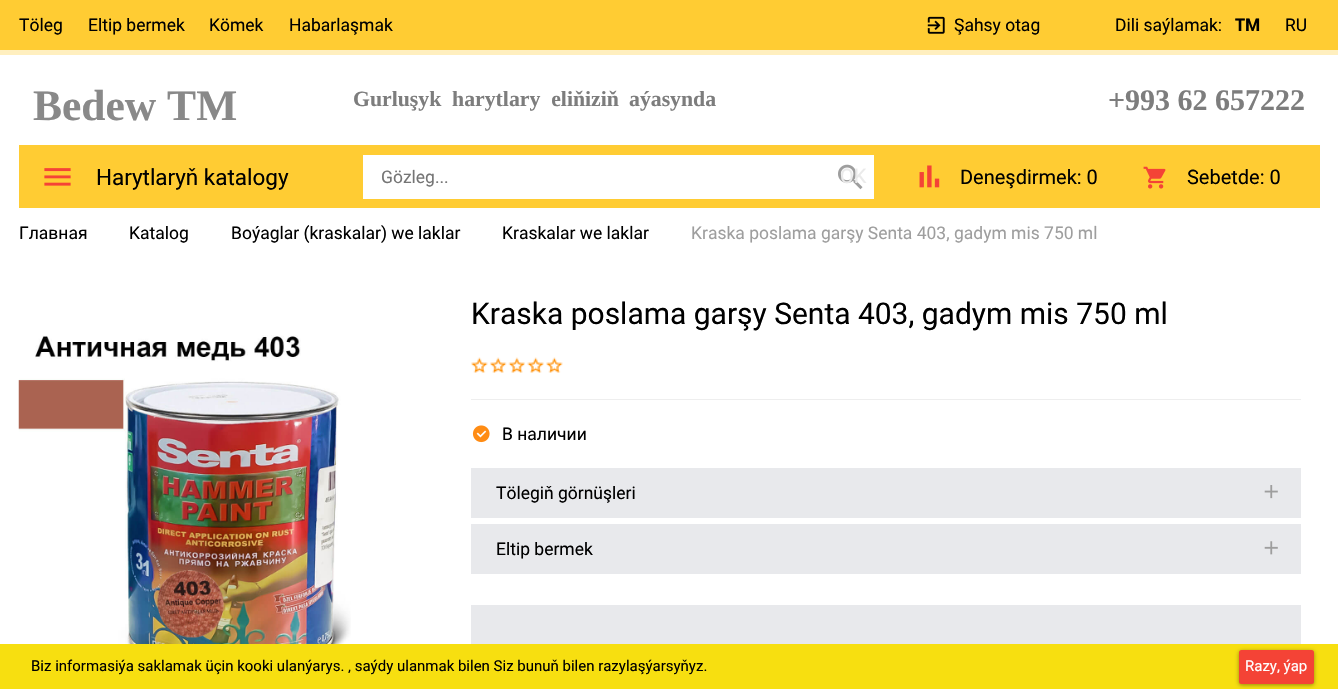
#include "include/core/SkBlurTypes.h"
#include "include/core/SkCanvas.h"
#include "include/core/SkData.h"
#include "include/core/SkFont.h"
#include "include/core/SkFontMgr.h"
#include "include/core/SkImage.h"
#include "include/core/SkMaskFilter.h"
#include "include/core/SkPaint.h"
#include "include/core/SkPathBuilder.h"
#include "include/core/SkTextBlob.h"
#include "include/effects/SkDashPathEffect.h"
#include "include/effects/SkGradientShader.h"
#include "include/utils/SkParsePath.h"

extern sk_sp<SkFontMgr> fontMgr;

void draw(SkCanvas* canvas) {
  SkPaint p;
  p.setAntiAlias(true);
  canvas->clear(SK_ColorWHITE);
  p.setColor(SkColorSetRGB(255, 204, 51));
  canvas->drawRect(SkRect::MakeLTRB(0, 0, 1338, 50), p);
  p.setColor(SkColorSetRGB(255, 239, 191));
  canvas->drawRect(SkRect::MakeLTRB(0, 50, 1338, 55), p);
  canvas->drawImageRect(SkImages::DeferredFromEncodedData(SkData::MakeFromFileName("images/1.png")), SkRect::MakeLTRB(927, 16, 945, 34), SkSamplingOptions());
  p.setColor(SkColorSetRGB(255, 204, 51));
  canvas->drawRect(SkRect::MakeLTRB(19, 145, 1320, 208), p);
  canvas->drawImageRect(SkImages::DeferredFromEncodedData(SkData::MakeFromFileName("images/2.png")), SkRect::MakeLTRB(44, 168, 71, 186), SkSamplingOptions());
  p.setColor(SK_ColorWHITE);
  canvas->drawRect(SkRect::MakeLTRB(363, 155, 874, 199), p);
  canvas->drawImageRect(SkImages::DeferredFromEncodedData(SkData::MakeFromFileName("images/3.png")), SkRect::MakeLTRB(838, 164, 863, 190), SkSamplingOptions());
  canvas->drawImageRect(SkImages::DeferredFromEncodedData(SkData::MakeFromFileName("images/4.png")), SkRect::MakeLTRB(919, 165, 940, 188), SkSamplingOptions());
  canvas->drawImageRect(SkImages::DeferredFromEncodedData(SkData::MakeFromFileName("images/5.png")), SkRect::MakeLTRB(1143, 166, 1166, 189), SkSamplingOptions());
  canvas->drawImageRect(SkImages::DeferredFromEncodedData(SkData::MakeFromFileName("images/6.png")), SkRect::MakeLTRB(18, 335, 351, 644), SkSamplingOptions());
  canvas->drawImageRect(SkImages::DeferredFromEncodedData(SkData::MakeFromFileName("images/7.png")), SkRect::MakeLTRB(471, 357, 488, 373), SkSamplingOptions());
  canvas->drawImageRect(SkImages::DeferredFromEncodedData(SkData::MakeFromFileName("images/8.png")), SkRect::MakeLTRB(490, 357, 507, 373), SkSamplingOptions());
  canvas->drawImageRect(SkImages::DeferredFromEncodedData(SkData::MakeFromFileName("images/9.png")), SkRect::MakeLTRB(508, 357, 525, 373), SkSamplingOptions());
  canvas->drawImageRect(SkImages::DeferredFromEncodedData(SkData::MakeFromFileName("images/10.png")), SkRect::MakeLTRB(527, 357, 544, 373), SkSamplingOptions());
  canvas->drawImageRect(SkImages::DeferredFromEncodedData(SkData::MakeFromFileName("images/7.png")), SkRect::MakeLTRB(546, 357, 563, 373), SkSamplingOptions());
  p.setColor(SkColorSetRGB(238, 238, 238));
  canvas->drawRect(SkRect::MakeLTRB(471, 399, 1301, 400), p);
  canvas->drawImageRect(SkImages::DeferredFromEncodedData(SkData::MakeFromFileName("images/11.png")), SkRect::MakeLTRB(472, 425, 490, 443), SkSamplingOptions());
  p.setColor(SkColorSetRGB(232, 233, 236));
  canvas->drawRect(SkRect::MakeLTRB(471, 468, 1301, 518), p);
  canvas->drawImageRect(SkImages::DeferredFromEncodedData(SkData::MakeFromFileName("images/12.png")), SkRect::MakeLTRB(1264, 485, 1278, 499), SkSamplingOptions());
  canvas->drawRect(SkRect::MakeLTRB(471, 524, 1301, 574), p);
  canvas->drawImageRect(SkImages::DeferredFromEncodedData(SkData::MakeFromFileName("images/13.png")), SkRect::MakeLTRB(1264, 541, 1278, 555), SkSamplingOptions());
  canvas->drawRect(SkRect::MakeLTRB(471, 605, 1301, 644), p);
  p.setColor(SkColorSetRGB(247, 223, 16));
  canvas->drawRect(SkRect::MakeLTRB(0, 644, 1338, 689), p);
  p.setColor(SkColorSetARGB(102, 0, 0, 0));
  p.setMaskFilter(SkMaskFilter::MakeBlur(kNormal_SkBlurStyle, 2));
  canvas->drawRoundRect(SkRect::MakeLTRB(1239, 651, 1314, 685), 2.5f, 2.5f, p);
  p.setMaskFilter(nullptr);
  p.setColor(SkColorSetRGB(244, 67, 54));
  canvas->drawRoundRect(SkRect::MakeLTRB(1239, 650, 1314, 684), 2.5f, 2.5f, p);
  SkFont font1(fontMgr->matchFamilyStyle("Roboto", SkFontStyle::Normal()), 17.5f);
  font1.setSubpixel(true);
  p.setColor(SK_ColorBLACK);
  canvas->drawString("Töleg", 19, 31, font1, p);
  canvas->drawString("Eltip bermek", 88, 31, font1, p);
  canvas->drawString("Kömek", 209, 31, font1, p);
  canvas->drawString("Habarlaşmak", 289, 31, font1, p);
  canvas->drawString("Şahsy otag", 954, 31, font1, p);
  canvas->drawString("Dili saýlamak:", 1115, 31, font1, p);
  SkFont font2(fontMgr->matchFamilyStyle("roboto", SkFontStyle::Bold()), 17.5f);
  font2.setSubpixel(true);
  canvas->drawString("TM", 1235, 31, font2, p);
  canvas->drawString("RU", 1285, 31, font1, p);
  SkFont font3(fontMgr->matchFamilyStyle("Liberation Serif", SkFontStyle::Bold()), 43.5f);
  font3.setSubpixel(true);
  p.setColor(SkColorSetRGB(137, 137, 137));
  canvas->drawString("Bedew TM", 33, 120, font3, p);
  SkFont font4(fontMgr->matchFamilyStyle("Liberation Serif", SkFontStyle::Bold()), 21.75f);
  font4.setSubpixel(true);
  p.setColor(SkColorSetRGB(125, 125, 125));
  canvas->drawString("Gurluşyk  harytlary  eliňiziň", 353, 106, font4, p);
  canvas->drawString("aýasynda", 629, 106, font4, p);
  SkFont font5(fontMgr->matchFamilyStyle("Liberation Serif", SkFontStyle::Bold()), 30);
  font5.setSubpixel(true);
  canvas->drawString("+993 62 657222", 1108, 110, font5, p);
  SkFont font6(fontMgr->matchFamilyStyle("Roboto", SkFontStyle::Normal()), 22.5f);
  font6.setSubpixel(true);
  p.setColor(SK_ColorBLACK);
  canvas->drawString("Harytlaryň katalogy", 96, 185, font6, p);
  p.setColor(SkColorSetRGB(117, 117, 117));
  canvas->drawString("Gözleg...", 381, 183, font1, p);
  SkFont font7(fontMgr->matchFamilyStyle("Roboto", SkFontStyle::Normal()), 20);
  font7.setSubpixel(true);
  p.setColor(SkColorSetRGB(234, 234, 234));
  canvas->drawString("OK", 840, 183, font7, p);
  p.setColor(SK_ColorBLACK);
  canvas->drawString("Deneşdirmek: 0", 960, 184, font7, p);
  canvas->drawString("Sebetde: 0", 1187, 184, font7, p);
  canvas->drawString("Главная", 19, 239, font1, p);
  canvas->drawString("Katalog", 129, 239, font1, p);
  canvas->drawString("Boýaglar (kraskalar) we laklar", 231, 239, font1, p);
  canvas->drawString("Kraskalar we laklar", 502, 239, font1, p);
  p.setColor(SkColorSetRGB(158, 158, 158));
  canvas->drawString("Kraska poslama garşy Senta 403, gadym mis 750 ml", 691, 239, font1, p);
  SkFont font8(fontMgr->matchFamilyStyle("Roboto", SkFontStyle::Normal()), 30);
  font8.setSubpixel(true);
  p.setColor(SK_ColorBLACK);
  canvas->drawString("Kraska poslama garşy Senta 403, gadym mis 750 ml", 471, 324, font8, p);
  canvas->drawString("В наличии", 502, 440, font1, p);
  canvas->drawString("Tölegiň görnüşleri", 496, 499, font1, p);
  canvas->drawString("Eltip bermek", 496, 555, font1, p);
  SkFont font9(fontMgr->matchFamilyStyle("Roboto", SkFontStyle::Normal()), 15);
  font9.setSubpixel(true);
  canvas->drawString("Biz informasiýa saklamak üçin kooki ulanýarys. ‚ saýdy ulanmak bilen Siz bunuň bilen razylaşýarsyňyz.", 31, 671, font9, p);
  p.setColor(SK_ColorWHITE);
  canvas->drawString("Razy, ýap", 1245, 671, font9, p);
}
